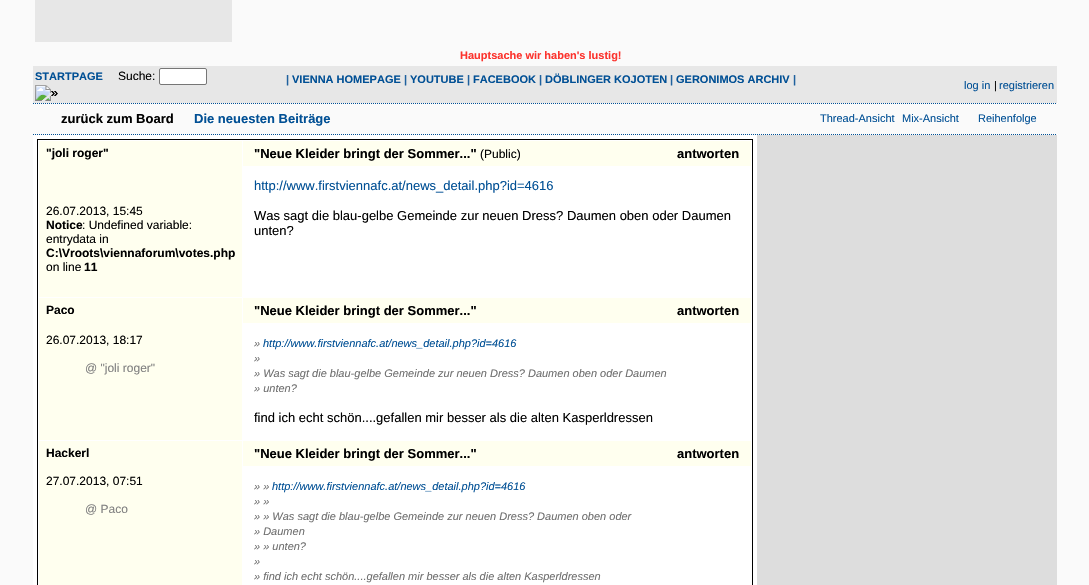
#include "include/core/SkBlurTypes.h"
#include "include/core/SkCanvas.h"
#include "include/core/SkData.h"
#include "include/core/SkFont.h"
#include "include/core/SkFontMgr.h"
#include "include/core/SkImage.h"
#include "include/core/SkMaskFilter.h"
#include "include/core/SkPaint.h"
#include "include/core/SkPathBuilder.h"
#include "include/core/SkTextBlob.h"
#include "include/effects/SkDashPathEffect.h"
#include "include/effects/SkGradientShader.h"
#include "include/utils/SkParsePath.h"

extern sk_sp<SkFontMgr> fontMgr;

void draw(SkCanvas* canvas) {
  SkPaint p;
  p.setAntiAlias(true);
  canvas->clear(SkColorSetRGB(250, 250, 250));
  p.setColor(SkColorSetRGB(231, 231, 231));
  canvas->drawRect(SkRect::MakeLTRB(35, 0, 232, 42), p);
  canvas->drawRect(SkRect::MakeLTRB(33, 66, 1057, 103), p);
  p.setColor(SK_ColorWHITE);
  canvas->drawRoundRect(SkRect::MakeLTRB(159.5f, 68.5f, 206.5f, 84.5f), 1.5f, 1.5f, p);
  p.setStyle(SkPaint::kStroke_Style);
  p.setStrokeWidth(1);
  p.setColor(SkColorSetRGB(118, 118, 118));
  canvas->drawRoundRect(SkRect::MakeLTRB(159.5f, 68.5f, 206.5f, 84.5f), 1.5f, 1.5f, p);
  canvas->drawImageRect(SkImages::DeferredFromEncodedData(SkData::MakeFromFileName("images/1.png")), SkRect::MakeLTRB(35, 85, 58, 101), SkSamplingOptions());
  p.setColor(SkColorSetRGB(1, 80, 149));
  p.setPathEffect(SkDashPathEffect::Make({{1, 1}}, 0));
  canvas->drawPath(SkPathBuilder().moveTo(33, 103.5f).lineTo(1057, 103.5f).detach(), p);
  p.setPathEffect(nullptr);
  p.setPathEffect(SkDashPathEffect::Make({{1, 1}}, 0));
  canvas->drawPath(SkPathBuilder().moveTo(33, 134.5f).lineTo(1057, 134.5f).detach(), p);
  p.setPathEffect(nullptr);
  p.setStyle(SkPaint::kFill_Style);
  p.setColor(SK_ColorWHITE);
  canvas->drawRect(SkRect::MakeLTRB(33, 135, 757, 585), p);
  p.setStyle(SkPaint::kStroke_Style);
  p.setColor(SK_ColorBLACK);
  canvas->drawRect(SkRect::MakeLTRB(37.5f, 139.5f, 752.5f, 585.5f), p);
  p.setStyle(SkPaint::kFill_Style);
  p.setColor(SkColorSetRGB(255, 255, 239));
  canvas->drawRect(SkRect::MakeLTRB(39, 141, 242, 297), p);
  canvas->drawRect(SkRect::MakeLTRB(243, 141, 751, 166), p);
  canvas->drawRect(SkRect::MakeLTRB(39, 298, 242, 440), p);
  canvas->drawRect(SkRect::MakeLTRB(243, 298, 751, 323), p);
  canvas->drawRect(SkRect::MakeLTRB(39, 441, 242, 585), p);
  canvas->drawRect(SkRect::MakeLTRB(243, 441, 751, 466), p);
  p.setColor(SkColorSetRGB(221, 221, 221));
  canvas->drawRect(SkRect::MakeLTRB(757, 135, 1057, 585), p);
  SkFont font1(fontMgr->matchFamilyStyle("Liberation Sans", SkFontStyle::Bold()), 11);
  font1.setSubpixel(true);
  p.setColor(SkColorSetRGB(252, 50, 44));
  canvas->drawString("Hauptsache wir haben's lustig!", 460, 59, font1, p);
  SkFont font2(fontMgr->matchFamilyStyle("Liberation Sans", SkFontStyle::Normal()), 12);
  font2.setSubpixel(true);
  p.setColor(SK_ColorBLACK);
  canvas->drawString("Suche:", 118, 80, font2, p);
  SkFont font3(fontMgr->matchFamilyStyle("Liberation Sans", SkFontStyle::Normal()), 13);
  font3.setSubpixel(true);
  canvas->drawString("»", 51, 97, font3, p);
  p.setColor(SkColorSetRGB(1, 80, 149));
  canvas->drawString("STARTPAGE", 35, 80, font1, p);
  p.setColor(SkColorSetRGB(31, 97, 158));
  canvas->drawString("|", 286, 83, font1, p);
  p.setColor(SkColorSetRGB(1, 80, 149));
  canvas->drawString("VIENNA HOMEPAGE", 292, 83, font1, p);
  p.setColor(SkColorSetRGB(31, 97, 158));
  canvas->drawString("|", 404, 83, font1, p);
  p.setColor(SkColorSetRGB(1, 80, 149));
  canvas->drawString("YOUTUBE", 410, 83, font1, p);
  p.setColor(SkColorSetRGB(31, 97, 158));
  canvas->drawString("|", 467, 83, font1, p);
  p.setColor(SkColorSetRGB(1, 80, 149));
  canvas->drawString("FACEBOOK", 473, 83, font1, p);
  p.setColor(SkColorSetRGB(31, 97, 158));
  canvas->drawString("|", 539, 83, font1, p);
  p.setColor(SkColorSetRGB(1, 80, 149));
  canvas->drawString("DÖBLINGER KOJOTEN", 545, 83, font1, p);
  p.setColor(SkColorSetRGB(31, 97, 158));
  canvas->drawString("|", 670, 83, font1, p);
  p.setColor(SkColorSetRGB(1, 80, 149));
  canvas->drawString("GERONIMOS ARCHIV", 676, 83, font1, p);
  p.setColor(SkColorSetRGB(31, 97, 158));
  canvas->drawString("|", 793, 83, font1, p);
  SkFont font4(fontMgr->matchFamilyStyle("Liberation Sans", SkFontStyle::Normal()), 11);
  font4.setSubpixel(true);
  p.setColor(SkColorSetRGB(1, 80, 149));
  canvas->drawString("log in", 964, 89, font4, p);
  p.setColor(SK_ColorBLACK);
  canvas->drawString("|", 994, 89, font4, p);
  p.setColor(SkColorSetRGB(1, 80, 149));
  canvas->drawString("registrieren", 999, 89, font4, p);
  SkFont font5(fontMgr->matchFamilyStyle("Liberation Sans", SkFontStyle::Bold()), 13);
  font5.setSubpixel(true);
  p.setColor(SK_ColorBLACK);
  canvas->drawString("zurück zum Board", 61, 123, font5, p);
  p.setColor(SkColorSetRGB(1, 80, 149));
  canvas->drawString("Die neuesten Beiträge", 194, 123, font5, p);
  canvas->drawString("Thread-Ansicht", 820, 122, font4, p);
  canvas->drawString("Mix-Ansicht", 902, 122, font4, p);
  canvas->drawString("Reihenfolge", 978, 122, font4, p);
  SkFont font6(fontMgr->matchFamilyStyle("Liberation Sans", SkFontStyle::Bold()), 12);
  font6.setSubpixel(true);
  p.setColor(SK_ColorBLACK);
  canvas->drawString("\"joli roger\"", 46, 157, font6, p);
  canvas->drawString("26.07.2013, 15:45", 46, 215, font2, p);
  canvas->drawString("Notice", 46, 229, font6, p);
  canvas->drawString(": Undefined variable:", 82, 229, font2, p);
  canvas->drawString("entrydata in", 46, 243, font2, p);
  canvas->drawString("C:\\Vroots\\viennaforum\\votes.php", 46, 257, font6, p);
  canvas->drawString("on line", 46, 271, font2, p);
  canvas->drawString("11", 84, 271, font6, p);
  canvas->drawString("\"Neue Kleider bringt der Sommer...\"", 254, 158, font5, p);
  canvas->drawString("(Public)", 480, 158, font2, p);
  canvas->drawString("antworten", 677, 158, font5, p);
  p.setColor(SkColorSetRGB(1, 80, 149));
  canvas->drawString("http://www.firstviennafc.at/news_detail.php?id=4616", 254, 190, font3, p);
  p.setColor(SK_ColorBLACK);
  canvas->drawString("Was sagt die blau-gelbe Gemeinde zur neuen Dress? Daumen oben oder Daumen", 254, 220, font3, p);
  canvas->drawString("unten?", 254, 235, font3, p);
  canvas->drawString("Paco", 46, 314, font6, p);
  canvas->drawString("26.07.2013, 18:17", 46, 344, font2, p);
  p.setColor(SkColorSetRGB(128, 128, 128));
  canvas->drawString("@ \"joli roger\"", 85, 372, font2, p);
  p.setColor(SK_ColorBLACK);
  canvas->drawString("\"Neue Kleider bringt der Sommer...\"", 254, 315, font5, p);
  canvas->drawString("antworten", 677, 315, font5, p);
  SkFont font7(fontMgr->matchFamilyStyle("Liberation Sans", SkFontStyle::Italic()), 11);
  font7.setSubpixel(true);
  p.setColor(SkColorSetRGB(111, 111, 111));
  canvas->drawString("»", 254, 347, font7, p);
  p.setColor(SkColorSetRGB(1, 80, 149));
  canvas->drawString("http://www.firstviennafc.at/news_detail.php?id=4616", 263, 347, font7, p);
  p.setColor(SkColorSetRGB(111, 111, 111));
  canvas->drawString("»", 254, 362, font7, p);
  canvas->drawString("» Was sagt die blau-gelbe Gemeinde zur neuen Dress? Daumen oben oder Daumen", 254, 377, font7, p);
  canvas->drawString("» unten?", 254, 392, font7, p);
  p.setColor(SK_ColorBLACK);
  canvas->drawString("find ich echt schön....gefallen mir besser als die alten Kasperldressen", 254, 422, font3, p);
  canvas->drawString("Hackerl", 46, 457, font6, p);
  canvas->drawString("27.07.2013, 07:51", 46, 485, font2, p);
  p.setColor(SkColorSetRGB(128, 128, 128));
  canvas->drawString("@ Paco", 85, 513, font2, p);
  p.setColor(SK_ColorBLACK);
  canvas->drawString("\"Neue Kleider bringt der Sommer...\"", 254, 458, font5, p);
  canvas->drawString("antworten", 677, 458, font5, p);
  p.setColor(SkColorSetRGB(111, 111, 111));
  canvas->drawString("» »", 254, 490, font7, p);
  p.setColor(SkColorSetRGB(1, 80, 149));
  canvas->drawString("http://www.firstviennafc.at/news_detail.php?id=4616", 272, 490, font7, p);
  p.setColor(SkColorSetRGB(111, 111, 111));
  canvas->drawString("» »", 254, 505, font7, p);
  canvas->drawString("» » Was sagt die blau-gelbe Gemeinde zur neuen Dress? Daumen oben oder", 254, 520, font7, p);
  canvas->drawString("» Daumen", 254, 535, font7, p);
  canvas->drawString("» » unten?", 254, 550, font7, p);
  canvas->drawString("»", 254, 565, font7, p);
  canvas->drawString("» find ich echt schön....gefallen mir besser als die alten Kasperldressen", 254, 580, font7, p);
}
